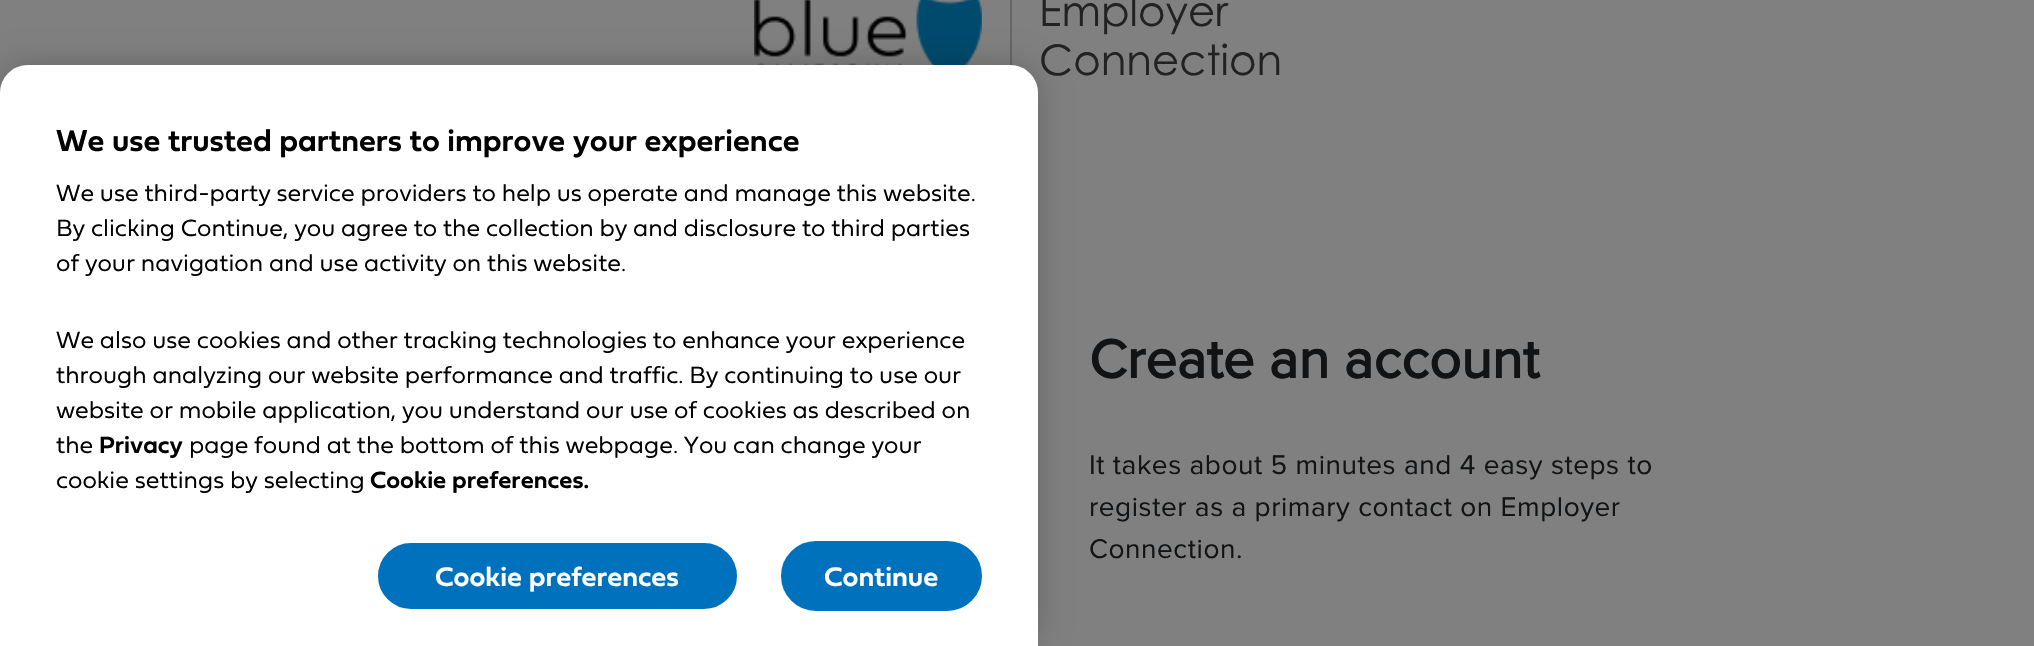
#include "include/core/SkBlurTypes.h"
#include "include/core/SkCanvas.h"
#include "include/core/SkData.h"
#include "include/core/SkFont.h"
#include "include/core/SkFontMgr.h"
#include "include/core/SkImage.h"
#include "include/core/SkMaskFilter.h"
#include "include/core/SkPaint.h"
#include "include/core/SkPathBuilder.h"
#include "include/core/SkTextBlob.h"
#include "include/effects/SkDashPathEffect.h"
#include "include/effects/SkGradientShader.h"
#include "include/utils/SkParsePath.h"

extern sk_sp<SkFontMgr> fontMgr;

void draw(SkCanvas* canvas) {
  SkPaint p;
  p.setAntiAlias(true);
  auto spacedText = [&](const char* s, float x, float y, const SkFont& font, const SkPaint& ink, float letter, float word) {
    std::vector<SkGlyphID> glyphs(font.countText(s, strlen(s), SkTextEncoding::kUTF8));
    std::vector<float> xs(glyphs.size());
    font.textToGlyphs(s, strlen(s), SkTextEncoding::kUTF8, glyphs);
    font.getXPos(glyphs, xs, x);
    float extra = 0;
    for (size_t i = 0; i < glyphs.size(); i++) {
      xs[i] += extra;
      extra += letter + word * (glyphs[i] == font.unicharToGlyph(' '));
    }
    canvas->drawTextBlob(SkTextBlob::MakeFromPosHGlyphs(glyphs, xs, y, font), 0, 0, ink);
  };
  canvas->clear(SkColorSetRGB(128, 128, 128));
  canvas->drawImageRect(SkImages::DeferredFromEncodedData(SkData::MakeFromFileName("images/1.png")), SkRect::MakeLTRB(754, 0, 982, 65), SkSamplingOptions());
  p.setColor(SkColorSetRGB(102, 102, 102));
  canvas->drawRect(SkRect::MakeLTRB(1010, 0, 1012, 66), p);
  p.setColor(SkColorSetARGB(51, 0, 0, 0));
  p.setMaskFilter(SkMaskFilter::MakeBlur(kNormal_SkBlurStyle, 16));
  canvas->drawRoundRect(SkRect::MakeLTRB(0, 65, 1038, 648), 28, 28, p);
  p.setMaskFilter(nullptr);
  p.setColor(SK_ColorWHITE);
  canvas->drawPath(SkPathBuilder().moveTo(28, 65).lineTo(1010, 65).cubicTo(1025.5f, 65, 1038, 77.5f, 1038, 93).lineTo(1038, 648).lineTo(0, 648).lineTo(0, 93).cubicTo(0, 77.5f, 12.5f, 65, 28, 65).close().detach(), p);
  p.setColor(SkColorSetRGB(0, 113, 188));
  canvas->drawRoundRect(SkRect::MakeLTRB(377, 542, 738, 610), 34, 34, p);
  p.setStyle(SkPaint::kStroke_Style);
  p.setStrokeWidth(2);
  p.setColor(SK_ColorWHITE);
  canvas->drawRoundRect(SkRect::MakeLTRB(377, 542, 738, 610), 34, 34, p);
  p.setStyle(SkPaint::kFill_Style);
  p.setColor(SkColorSetRGB(0, 113, 188));
  canvas->drawRoundRect(SkRect::MakeLTRB(782, 542, 981, 610), 34, 34, p);
  p.setStyle(SkPaint::kStroke_Style);
  canvas->drawRoundRect(SkRect::MakeLTRB(782, 542, 981, 610), 34, 34, p);
  SkFont font1(fontMgr->matchFamilyStyle("Century Gothic", SkFontStyle::Normal()), 42);
  font1.setSubpixel(true);
  p.setStyle(SkPaint::kFill_Style);
  p.setColor(SkColorSetRGB(34, 34, 35));
  canvas->drawString("Employer", 1039, 26, font1, p);
  canvas->drawString("Connection", 1039, 75, font1, p);
  SkFont font2(fontMgr->matchFamilyStyle("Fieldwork", SkFontStyle(600, SkFontStyle::kNormal_Width, SkFontStyle::kUpright_Slant)), 31.5f);
  font2.setSubpixel(true);
  p.setColor(SK_ColorBLACK);
  canvas->drawString("We use trusted partners to improve your experience", 56, 151, font2, p);
  SkFont font3(fontMgr->matchFamilyStyle("Fieldwork", SkFontStyle(300, SkFontStyle::kNormal_Width, SkFontStyle::kUpright_Slant)), 24.5f);
  font3.setSubpixel(true);
  canvas->drawString("We use third-party service providers to help us operate and manage this website.", 56, 201, font3, p);
  canvas->drawString("By clicking Continue, you agree to the collection by and disclosure to third parties", 56, 236, font3, p);
  canvas->drawString("of your navigation and use activity on this website.", 56, 271, font3, p);
  canvas->drawString("We also use cookies and other tracking technologies to enhance your experience", 56, 348, font3, p);
  canvas->drawString("through analyzing our website performance and traffic. By continuing to use our", 56, 383, font3, p);
  canvas->drawString("website or mobile application, you understand our use of cookies as described on", 56, 418, font3, p);
  canvas->drawString("the", 56, 453, font3, p);
  SkFont font4(fontMgr->matchFamilyStyle("Fieldwork", SkFontStyle(600, SkFontStyle::kNormal_Width, SkFontStyle::kUpright_Slant)), 24.5f);
  font4.setSubpixel(true);
  canvas->drawString("Privacy", 99, 453, font4, p);
  canvas->drawString("page found at the bottom of this webpage. You can change your", 189, 453, font3, p);
  canvas->drawString("cookie settings by selecting", 56, 488, font3, p);
  canvas->drawString("Cookie preferences.", 370, 488, font4, p);
  SkFont font5(fontMgr->matchFamilyStyle("Fieldwork", SkFontStyle(600, SkFontStyle::kNormal_Width, SkFontStyle::kUpright_Slant)), 28);
  font5.setSubpixel(true);
  p.setColor(SK_ColorWHITE);
  canvas->drawString("Cookie preferences", 435, 586, font5, p);
  canvas->drawString("Continue", 824, 586, font5, p);
  SkFont font6(fontMgr->matchFamilyStyle("Proxima Nova", SkFontStyle::Bold()), 56);
  font6.setSubpixel(true);
  p.setColor(SkColorSetRGB(17, 19, 21));
  canvas->drawString("Create an account", 1089, 378, font6, p);
  SkFont font7(fontMgr->matchFamilyStyle("Proxima Nova", SkFontStyle::Normal()), 28);
  font7.setSubpixel(true);
  spacedText("It takes about 5 minutes and 4 easy steps to", 1089, 474, font7, p, 0.55f, 0);
  spacedText("register as a primary contact on Employer", 1089, 516, font7, p, 0.55f, 0);
  spacedText("Connection.", 1089, 558, font7, p, 0.55f, 0);
}
